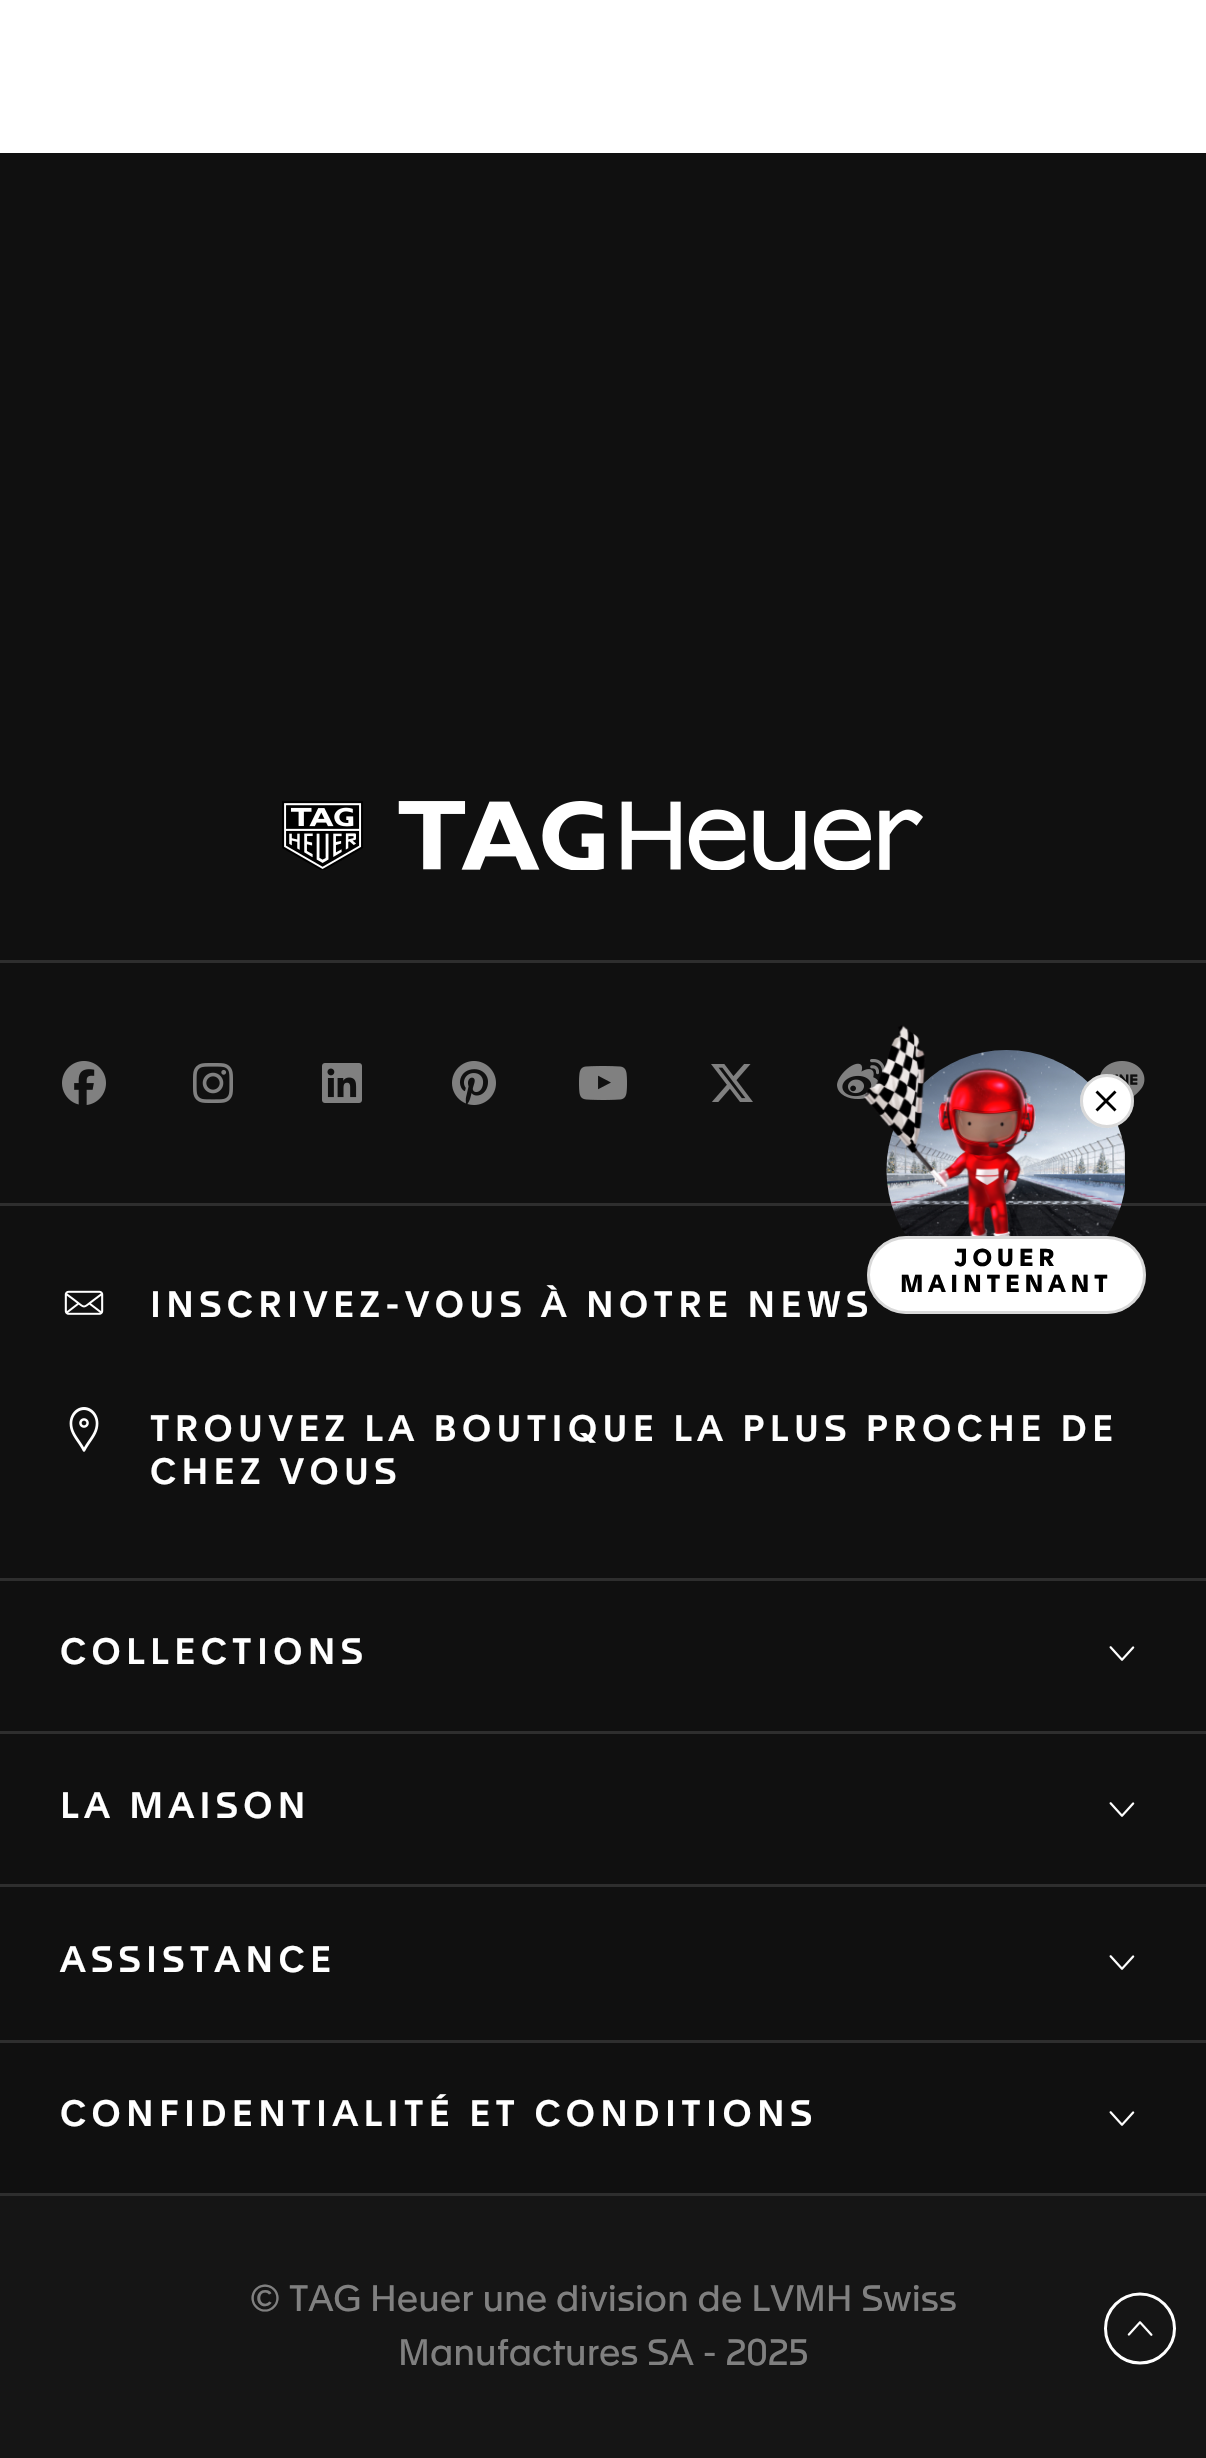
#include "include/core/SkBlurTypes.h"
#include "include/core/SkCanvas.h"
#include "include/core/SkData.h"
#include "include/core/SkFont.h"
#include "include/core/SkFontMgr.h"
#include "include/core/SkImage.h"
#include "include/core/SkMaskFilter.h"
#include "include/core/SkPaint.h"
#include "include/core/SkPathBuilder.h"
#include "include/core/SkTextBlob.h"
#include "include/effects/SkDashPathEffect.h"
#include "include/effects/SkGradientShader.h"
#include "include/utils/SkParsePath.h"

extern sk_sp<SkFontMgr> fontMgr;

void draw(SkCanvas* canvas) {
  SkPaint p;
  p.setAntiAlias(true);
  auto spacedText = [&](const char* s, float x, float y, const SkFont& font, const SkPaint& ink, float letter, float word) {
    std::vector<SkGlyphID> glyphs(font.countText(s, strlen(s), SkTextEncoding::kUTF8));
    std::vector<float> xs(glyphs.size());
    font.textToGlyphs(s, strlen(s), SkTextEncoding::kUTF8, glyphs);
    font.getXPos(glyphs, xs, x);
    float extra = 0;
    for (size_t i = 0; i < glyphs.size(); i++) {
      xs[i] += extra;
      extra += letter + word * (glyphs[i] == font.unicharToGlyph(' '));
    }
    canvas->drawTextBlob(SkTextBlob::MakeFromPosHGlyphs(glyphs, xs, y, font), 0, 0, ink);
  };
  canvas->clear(SK_ColorWHITE);
  p.setColor(SkColorSetRGB(16, 16, 16));
  canvas->drawRect(SkRect::MakeLTRB(0, 153, 1206, 2193), p);
  p.setColor(SkColorSetRGB(46, 46, 46));
  canvas->drawRect(SkRect::MakeLTRB(0, 1203, 1206, 1206), p);
  canvas->drawImageRect(SkImages::DeferredFromEncodedData(SkData::MakeFromFileName("images/11.png")), SkRect::MakeLTRB(1100, 1061, 1145, 1097), SkSamplingOptions());
  canvas->drawImageRect(SkImages::DeferredFromEncodedData(SkData::MakeFromFileName("images/2.png")), SkRect::MakeLTRB(886, 1050, 1125, 1236), SkSamplingOptions());
  p.setColor(SK_ColorWHITE);
  canvas->drawCircle(1107, 1101, 27, p);
  p.setStyle(SkPaint::kStroke_Style);
  p.setStrokeWidth(3);
  p.setColor(SkColorSetARGB(92, 150, 150, 150));
  canvas->drawCircle(1107, 1101, 25.5f, p);
  p.setStyle(SkPaint::kFill_Style);
  p.setColor(SK_ColorBLACK);
  canvas->drawPath(SkPathBuilder().moveTo(1114.5f, 1090.5f).lineTo(1116.5f, 1092.5f).lineTo(1097.5f, 1111.5f).lineTo(1095.5f, 1109.5f).close().detach(), p);
  canvas->drawPath(SkPathBuilder().moveTo(1095.5f, 1092.5f).lineTo(1097.5f, 1090.5f).lineTo(1116.5f, 1109.5f).lineTo(1114.5f, 1111.5f).close().detach(), p);
  canvas->drawImageRect(SkImages::DeferredFromEncodedData(SkData::MakeFromFileName("images/10.png")), SkRect::MakeLTRB(837, 1059, 885, 1099), SkSamplingOptions());
  canvas->drawImageRect(SkImages::DeferredFromEncodedData(SkData::MakeFromFileName("images/1.png")), SkRect::MakeLTRB(864, 1025, 1036, 1236), SkSamplingOptions());
  p.setColor(SK_ColorWHITE);
  canvas->drawRoundRect(SkRect::MakeLTRB(867, 1236, 1146, 1314), 39, 39, p);
  p.setColor(SkColorSetRGB(46, 46, 46));
  canvas->drawRect(SkRect::MakeLTRB(0, 960, 1206, 963), p);
  canvas->drawImageRect(SkImages::DeferredFromEncodedData(SkData::MakeFromFileName("images/3.png")), SkRect::MakeLTRB(282, 801, 923, 870), SkSamplingOptions());
  canvas->drawRect(SkRect::MakeLTRB(0, 1578, 1206, 1581), p);
  canvas->drawImageRect(SkImages::DeferredFromEncodedData(SkData::MakeFromFileName("images/4.png")), SkRect::MakeLTRB(62, 1061, 106, 1105), SkSamplingOptions());
  canvas->drawImageRect(SkImages::DeferredFromEncodedData(SkData::MakeFromFileName("images/5.png")), SkRect::MakeLTRB(193, 1063, 233, 1103), SkSamplingOptions());
  canvas->drawImageRect(SkImages::DeferredFromEncodedData(SkData::MakeFromFileName("images/6.png")), SkRect::MakeLTRB(322, 1063, 362, 1103), SkSamplingOptions());
  canvas->drawImageRect(SkImages::DeferredFromEncodedData(SkData::MakeFromFileName("images/7.png")), SkRect::MakeLTRB(452, 1061, 496, 1105), SkSamplingOptions());
  canvas->drawImageRect(SkImages::DeferredFromEncodedData(SkData::MakeFromFileName("images/8.png")), SkRect::MakeLTRB(579, 1066, 627, 1100), SkSamplingOptions());
  canvas->drawImageRect(SkImages::DeferredFromEncodedData(SkData::MakeFromFileName("images/9.png")), SkRect::MakeLTRB(711, 1064, 753, 1102), SkSamplingOptions());
  canvas->drawImageRect(SkImages::DeferredFromEncodedData(SkData::MakeFromFileName("images/12.png")), SkRect::MakeLTRB(64, 1290, 104, 1315), SkSamplingOptions());
  canvas->drawImageRect(SkImages::DeferredFromEncodedData(SkData::MakeFromFileName("images/13.png")), SkRect::MakeLTRB(69, 1407, 99, 1452), SkSamplingOptions());
  canvas->drawRect(SkRect::MakeLTRB(0, 1731, 1206, 1734), p);
  canvas->drawImageRect(SkImages::DeferredFromEncodedData(SkData::MakeFromFileName("images/14.png")), SkRect::MakeLTRB(1109, 1646, 1135, 1661), SkSamplingOptions());
  canvas->drawRect(SkRect::MakeLTRB(0, 1884, 1206, 1887), p);
  canvas->drawImageRect(SkImages::DeferredFromEncodedData(SkData::MakeFromFileName("images/14.png")), SkRect::MakeLTRB(1109, 1802, 1135, 1817), SkSamplingOptions());
  canvas->drawRect(SkRect::MakeLTRB(0, 2040, 1206, 2043), p);
  canvas->drawImageRect(SkImages::DeferredFromEncodedData(SkData::MakeFromFileName("images/14.png")), SkRect::MakeLTRB(1109, 1955, 1135, 1970), SkSamplingOptions());
  canvas->drawRect(SkRect::MakeLTRB(0, 2193, 1206, 2196), p);
  canvas->drawImageRect(SkImages::DeferredFromEncodedData(SkData::MakeFromFileName("images/14.png")), SkRect::MakeLTRB(1109, 2111, 1135, 2126), SkSamplingOptions());
  p.setColor(SkColorSetRGB(21, 21, 21));
  canvas->drawRect(SkRect::MakeLTRB(0, 2196, 1206, 2458), p);
  p.setStyle(SkPaint::kStroke_Style);
  p.setColor(SK_ColorWHITE);
  canvas->drawPath(SkPathBuilder().moveTo(1140, 2363).cubicTo(1121, 2363, 1105.5f, 2347.5f, 1105.5f, 2328.5f).cubicTo(1105.5f, 2309.5f, 1121, 2294, 1140, 2294).cubicTo(1159, 2294, 1174.5f, 2309.5f, 1174.5f, 2328.5f).cubicTo(1174.5f, 2347.5f, 1159, 2363, 1140, 2363).close().detach(), p);
  canvas->drawImageRect(SkImages::DeferredFromEncodedData(SkData::MakeFromFileName("images/15.png")), SkRect::MakeLTRB(1127, 2321, 1153, 2336), SkSamplingOptions());
  SkFont font1(fontMgr->matchFamilyStyle("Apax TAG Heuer", SkFontStyle(500, SkFontStyle::kNormal_Width, SkFontStyle::kUpright_Slant)), 36);
  font1.setSubpixel(true);
  p.setStyle(SkPaint::kFill_Style);
  spacedText("INSCRIVEZ-VOUS À NOTRE NEWS", 150, 1317, font1, p, 5.4f, 0);
  p.setStyle(SkPaint::kStroke_Style);
  p.setColor(SkColorSetARGB(92, 150, 150, 150));
  canvas->drawRoundRect(SkRect::MakeLTRB(868.5f, 1237.5f, 1144.5f, 1312.5f), 37.5f, 37.5f, p);
  SkFont font2(fontMgr->matchFamilyStyle("Apax TAG Heuer", SkFontStyle::Bold()), 24);
  font2.setSubpixel(true);
  p.setStyle(SkPaint::kFill_Style);
  p.setColor(SK_ColorBLACK);
  spacedText("MAINTENANT", 900, 1292, font2, p, 4.75f, 0);
  spacedText("JOUER", 954, 1266, font2, p, 4.75f, 0);
  p.setColor(SK_ColorWHITE);
  spacedText("TROUVEZ LA BOUTIQUE LA PLUS PROCHE DE", 150, 1441, font1, p, 5.4f, 0);
  spacedText("CHEZ VOUS", 150, 1484, font1, p, 5.4f, 0);
  spacedText("COLLECTIONS", 60, 1664, font1, p, 5.4f, 0);
  spacedText("LA MAISON", 60, 1818, font1, p, 5.4f, 0);
  spacedText("ASSISTANCE", 60, 1972, font1, p, 5.4f, 0);
  spacedText("CONFIDENTIALITÉ ET CONDITIONS", 60, 2126, font1, p, 5.4f, 0);
  SkFont font3(fontMgr->matchFamilyStyle("Apax TAG Heuer", SkFontStyle::Normal()), 36);
  font3.setSubpixel(true);
  p.setColor(SkColorSetRGB(128, 128, 128));
  canvas->drawString("© TAG Heuer une division de LVMH Swiss", 250, 2311, font3, p);
  canvas->drawString("Manufactures SA - 2025", 398, 2365, font3, p);
}
